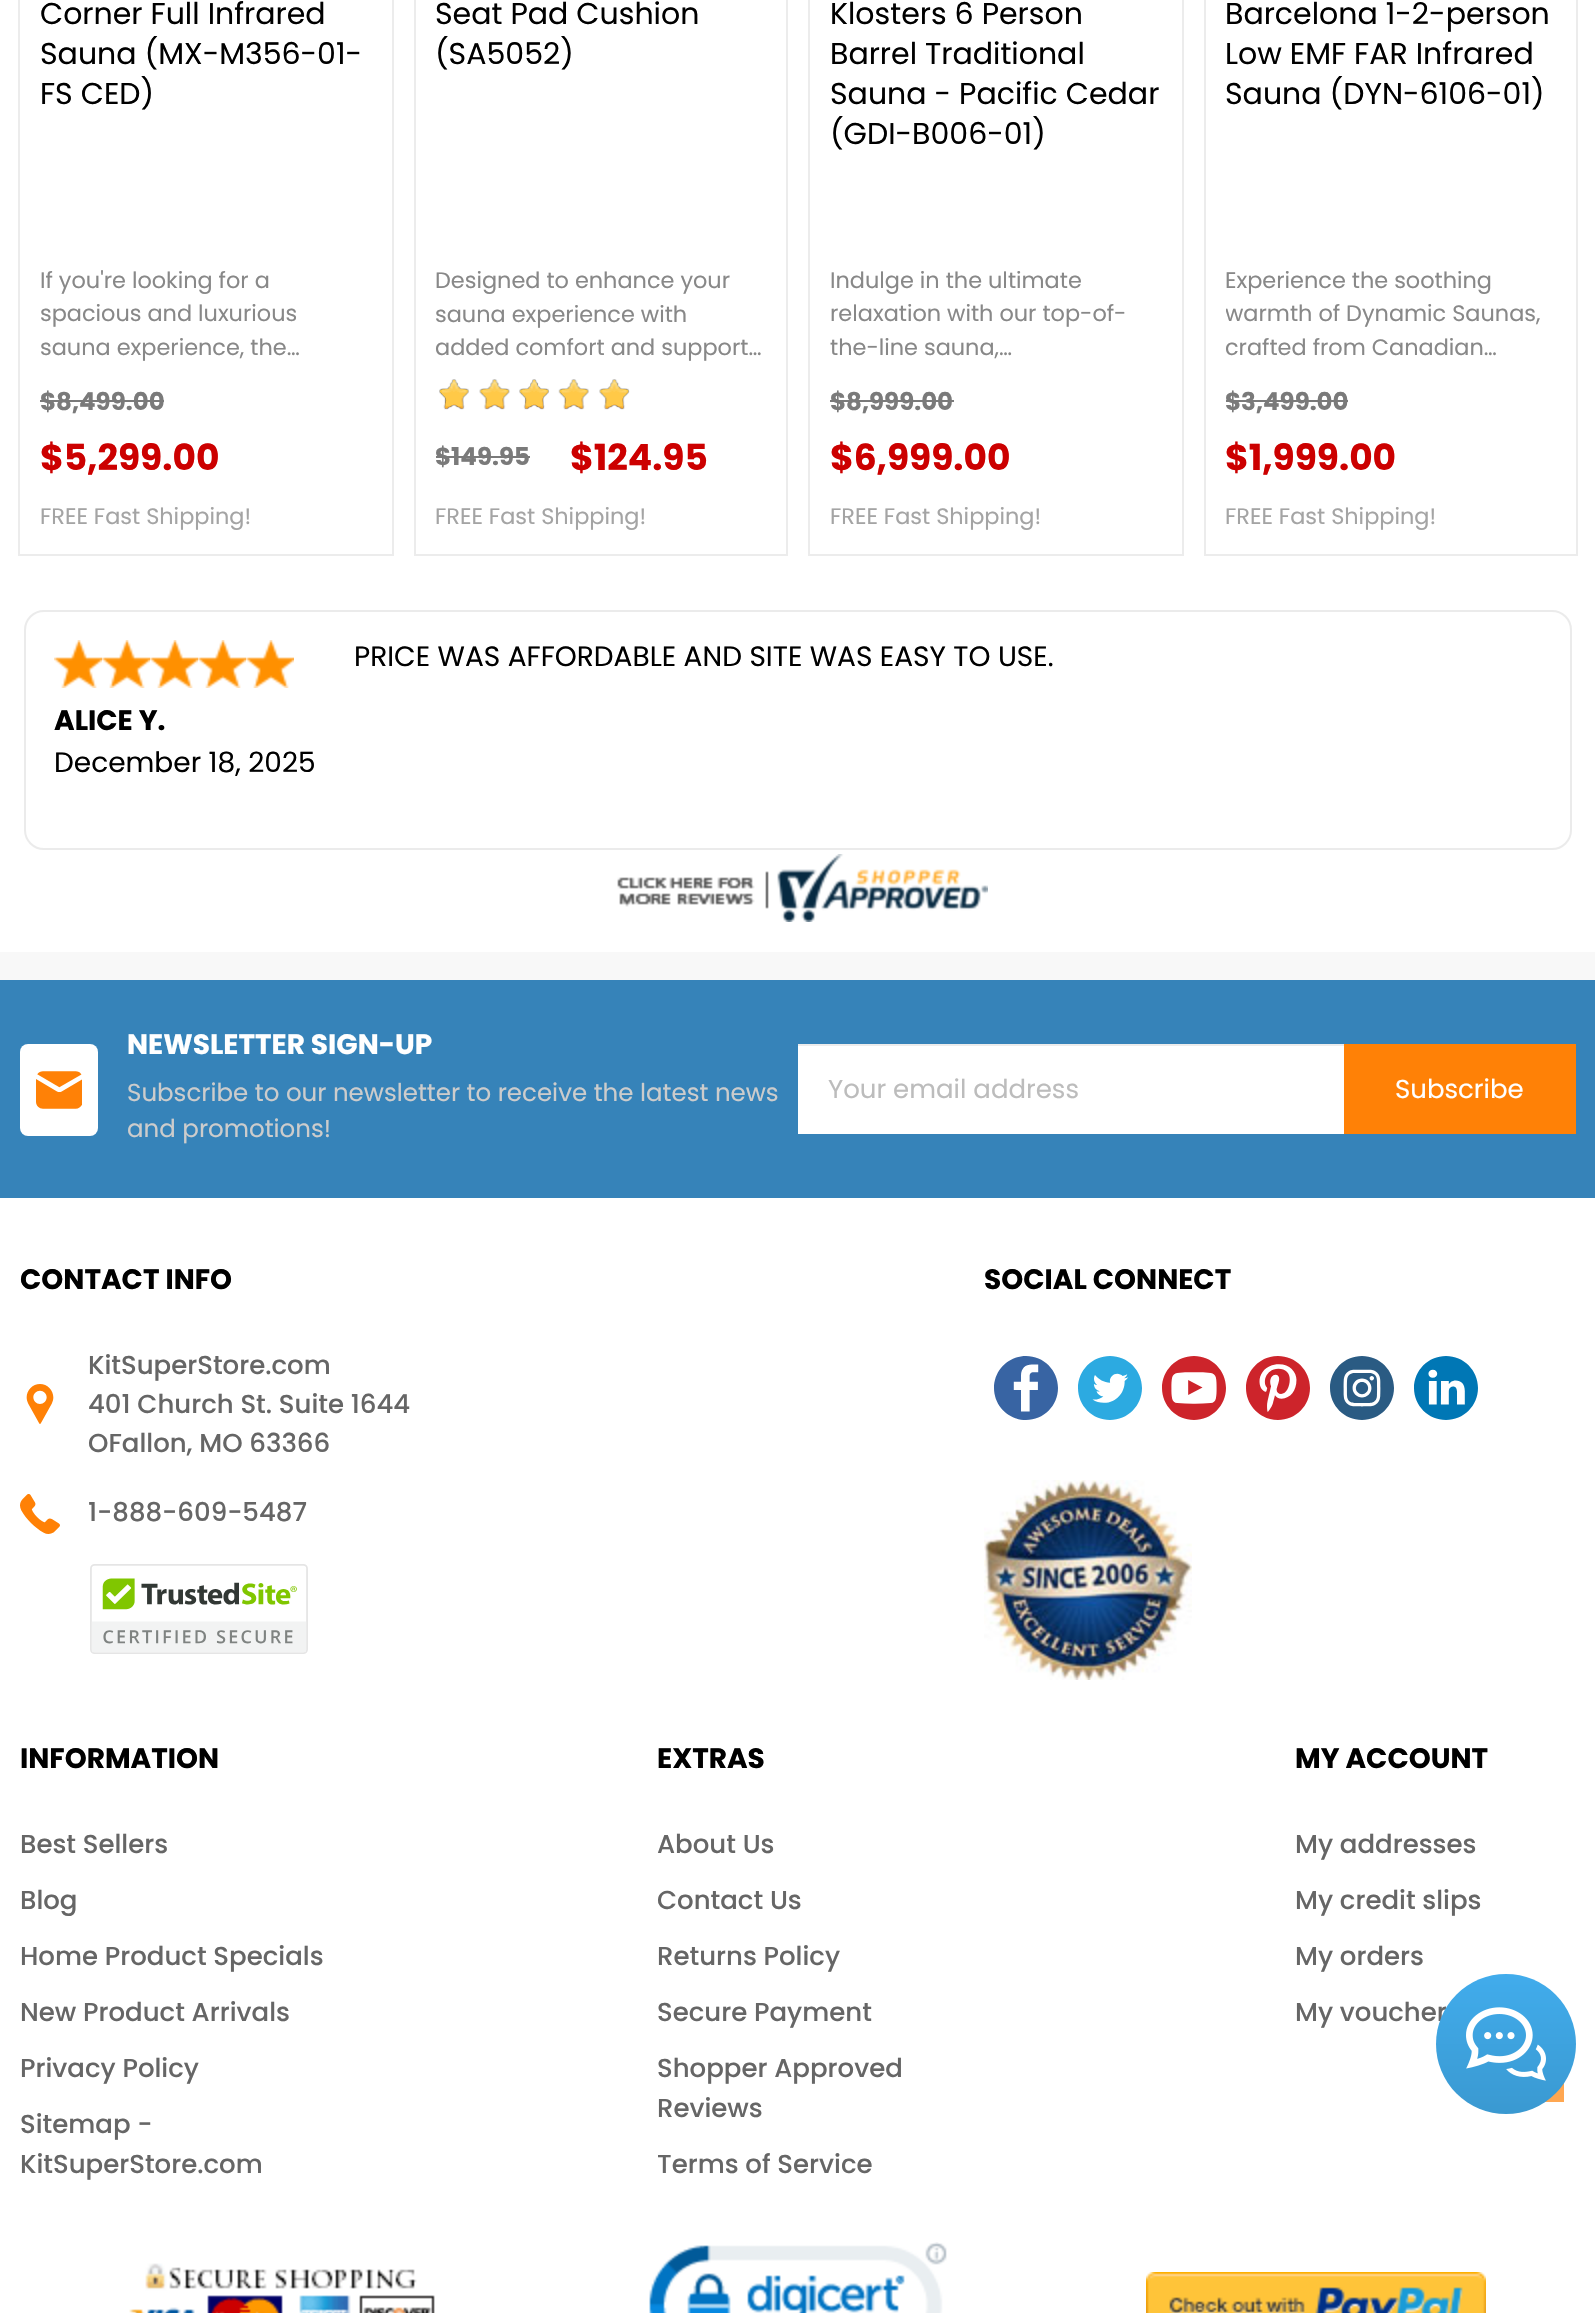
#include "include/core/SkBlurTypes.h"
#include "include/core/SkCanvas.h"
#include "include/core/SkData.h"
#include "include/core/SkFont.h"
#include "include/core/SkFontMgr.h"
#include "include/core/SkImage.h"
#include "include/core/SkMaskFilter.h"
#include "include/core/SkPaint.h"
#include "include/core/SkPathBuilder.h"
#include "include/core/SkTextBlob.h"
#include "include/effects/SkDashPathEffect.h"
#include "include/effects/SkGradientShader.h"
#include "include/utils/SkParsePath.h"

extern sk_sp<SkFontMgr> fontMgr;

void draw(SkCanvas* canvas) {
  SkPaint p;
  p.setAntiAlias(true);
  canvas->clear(SkColorSetRGB(248, 248, 248));
  p.setColor(SK_ColorWHITE);
  canvas->drawRect(SkRect::MakeLTRB(0, 0, 1595, 952), p);
  p.setStyle(SkPaint::kStroke_Style);
  p.setStrokeWidth(2);
  p.setColor(SkColorSetRGB(236, 236, 236));
  canvas->drawRect(SkRect::MakeLTRB(19, -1, 393, 555), p);
  p.setStyle(SkPaint::kFill_Style);
  p.setColor(SkColorSetRGB(122, 122, 122));
  canvas->drawRect(SkRect::MakeLTRB(40, 400, 164, 402), p);
  p.setStyle(SkPaint::kStroke_Style);
  p.setColor(SkColorSetRGB(236, 236, 236));
  canvas->drawRect(SkRect::MakeLTRB(415, -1, 787, 555), p);
  canvas->drawImageRect(SkImages::DeferredFromEncodedData(SkData::MakeFromFileName("images/1.png")), SkRect::MakeLTRB(439, 379, 630, 410), SkSamplingOptions());
  p.setStyle(SkPaint::kFill_Style);
  p.setColor(SkColorSetRGB(122, 122, 122));
  canvas->drawRect(SkRect::MakeLTRB(436, 456, 530, 458), p);
  p.setStyle(SkPaint::kStroke_Style);
  p.setColor(SkColorSetRGB(236, 236, 236));
  canvas->drawRect(SkRect::MakeLTRB(809, -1, 1183, 555), p);
  p.setStyle(SkPaint::kFill_Style);
  p.setColor(SkColorSetRGB(122, 122, 122));
  canvas->drawRect(SkRect::MakeLTRB(830, 400, 954, 402), p);
  p.setStyle(SkPaint::kStroke_Style);
  p.setColor(SkColorSetRGB(236, 236, 236));
  canvas->drawRect(SkRect::MakeLTRB(1205, -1, 1577, 555), p);
  p.setStyle(SkPaint::kFill_Style);
  p.setColor(SkColorSetRGB(122, 122, 122));
  canvas->drawRect(SkRect::MakeLTRB(1226, 400, 1348, 402), p);
  p.setStyle(SkPaint::kStroke_Style);
  p.setColor(SkColorSetRGB(235, 235, 235));
  canvas->drawRoundRect(SkRect::MakeLTRB(25, 611, 1571, 849), 19, 19, p);
  canvas->drawImageRect(SkImages::DeferredFromEncodedData(SkData::MakeFromFileName("images/2.png")), SkRect::MakeLTRB(54, 640, 102, 688), SkSamplingOptions());
  canvas->drawImageRect(SkImages::DeferredFromEncodedData(SkData::MakeFromFileName("images/2.png")), SkRect::MakeLTRB(102, 640, 150, 688), SkSamplingOptions());
  canvas->drawImageRect(SkImages::DeferredFromEncodedData(SkData::MakeFromFileName("images/2.png")), SkRect::MakeLTRB(150, 640, 198, 688), SkSamplingOptions());
  canvas->drawImageRect(SkImages::DeferredFromEncodedData(SkData::MakeFromFileName("images/2.png")), SkRect::MakeLTRB(198, 640, 246, 688), SkSamplingOptions());
  canvas->drawImageRect(SkImages::DeferredFromEncodedData(SkData::MakeFromFileName("images/2.png")), SkRect::MakeLTRB(246, 640, 294, 688), SkSamplingOptions());
  canvas->drawImageRect(SkImages::DeferredFromEncodedData(SkData::MakeFromFileName("images/3.png")), SkRect::MakeLTRB(617, 854, 988, 922), SkSamplingOptions());
  p.setStyle(SkPaint::kFill_Style);
  p.setColor(SkColorSetRGB(54, 131, 185));
  canvas->drawRect(SkRect::MakeLTRB(0, 980, 1595, 1198), p);
  p.setColor(SK_ColorWHITE);
  canvas->drawRoundRect(SkRect::MakeLTRB(20, 1044, 98, 1136), 8, 8, p);
  canvas->drawImageRect(SkImages::DeferredFromEncodedData(SkData::MakeFromFileName("images/4.png")), SkRect::MakeLTRB(36, 1071, 82, 1109), SkSamplingOptions());
  canvas->drawRect(SkRect::MakeLTRB(798, 1046, 1344, 1134), p);
  p.setColor(SkColorSetRGB(236, 236, 236));
  canvas->drawRect(SkRect::MakeLTRB(798, 1044, 1346, 1046), p);
  p.setColor(SkColorSetRGB(255, 129, 6));
  canvas->drawRect(SkRect::MakeLTRB(1344, 1044, 1576, 1134), p);
  p.setColor(SK_ColorWHITE);
  canvas->drawRect(SkRect::MakeLTRB(0, 1198, 1595, 2313), p);
  canvas->drawImageRect(SkImages::DeferredFromEncodedData(SkData::MakeFromFileName("images/5.png")), SkRect::MakeLTRB(26, 1384, 54, 1424), SkSamplingOptions());
  canvas->drawImageRect(SkImages::DeferredFromEncodedData(SkData::MakeFromFileName("images/6.png")), SkRect::MakeLTRB(20, 1494, 60, 1534), SkSamplingOptions());
  canvas->drawImageRect(SkImages::DeferredFromEncodedData(SkData::MakeFromFileName("images/7.png")), SkRect::MakeLTRB(90, 1564, 308, 1654), SkSamplingOptions());
  canvas->drawImageRect(SkImages::DeferredFromEncodedData(SkData::MakeFromFileName("images/8.png")), SkRect::MakeLTRB(994, 1356, 1058, 1420), SkSamplingOptions());
  canvas->drawImageRect(SkImages::DeferredFromEncodedData(SkData::MakeFromFileName("images/9.png")), SkRect::MakeLTRB(1078, 1356, 1142, 1420), SkSamplingOptions());
  canvas->drawImageRect(SkImages::DeferredFromEncodedData(SkData::MakeFromFileName("images/10.png")), SkRect::MakeLTRB(1162, 1356, 1226, 1420), SkSamplingOptions());
  canvas->drawImageRect(SkImages::DeferredFromEncodedData(SkData::MakeFromFileName("images/11.png")), SkRect::MakeLTRB(1246, 1356, 1310, 1420), SkSamplingOptions());
  canvas->drawImageRect(SkImages::DeferredFromEncodedData(SkData::MakeFromFileName("images/12.png")), SkRect::MakeLTRB(1330, 1356, 1394, 1420), SkSamplingOptions());
  canvas->drawImageRect(SkImages::DeferredFromEncodedData(SkData::MakeFromFileName("images/13.png")), SkRect::MakeLTRB(1414, 1356, 1478, 1420), SkSamplingOptions());
  canvas->drawImageRect(SkImages::DeferredFromEncodedData(SkData::MakeFromFileName("images/14.png")), SkRect::MakeLTRB(984, 1480, 1192, 1680), SkSamplingOptions());
  canvas->drawImageRect(SkImages::DeferredFromEncodedData(SkData::MakeFromFileName("images/15.png")), SkRect::MakeLTRB(129, 2263, 435, 2313), SkSamplingOptions());
  canvas->drawImageRect(SkImages::DeferredFromEncodedData(SkData::MakeFromFileName("images/16.png")), SkRect::MakeLTRB(649, 2242, 947, 2313), SkSamplingOptions());
  canvas->drawImageRect(SkImages::DeferredFromEncodedData(SkData::MakeFromFileName("images/17.png")), SkRect::MakeLTRB(1146, 2272, 1486, 2313), SkSamplingOptions());
  p.setColor(SkColorSetRGB(255, 167, 81));
  canvas->drawRect(SkRect::MakeLTRB(1545, 2083, 1564, 2102), p);
  SkFont font1(fontMgr->matchFamilyStyle("Poppins", SkFontStyle::Normal()), 30);
  font1.setSubpixel(true);
  p.setColor(SK_ColorBLACK);
  canvas->drawString("Corner Full Infrared", 40, 24, font1, p);
  canvas->drawString("Sauna (MX-M356-01-", 40, 64, font1, p);
  canvas->drawString("FS CED)", 40, 104, font1, p);
  SkFont font2(fontMgr->matchFamilyStyle("Poppins", SkFontStyle::Normal()), 22.4f);
  font2.setSubpixel(true);
  p.setColor(SkColorSetRGB(136, 136, 136));
  canvas->drawString("If you're looking for a", 40, 288, font2, p);
  canvas->drawString("spacious and luxurious", 40, 321, font2, p);
  canvas->drawString("sauna experience, the…", 40, 355, font2, p);
  SkFont font3(fontMgr->matchFamilyStyle("Poppins", SkFontStyle::Bold()), 24.5f);
  font3.setSubpixel(true);
  p.setColor(SkColorSetRGB(122, 122, 122));
  canvas->drawString("$8,499.00", 40, 410, font3, p);
  SkFont font4(fontMgr->matchFamilyStyle("Poppins", SkFontStyle::Bold()), 36);
  font4.setSubpixel(true);
  p.setColor(SkColorSetRGB(204, 0, 0));
  canvas->drawString("$5,299.00", 40, 470, font4, p);
  p.setColor(SkColorSetRGB(164, 164, 164));
  canvas->drawString("FREE Fast Shipping!", 40, 524, font2, p);
  p.setColor(SK_ColorBLACK);
  canvas->drawString("Seat Pad Cushion", 435, 24, font1, p);
  canvas->drawString("(SA5052)", 435, 64, font1, p);
  p.setColor(SkColorSetRGB(136, 136, 136));
  canvas->drawString("Designed to enhance your", 435, 288, font2, p);
  canvas->drawString("sauna experience with", 435, 322, font2, p);
  canvas->drawString("added comfort and support…", 435, 355, font2, p);
  p.setColor(SkColorSetRGB(122, 122, 122));
  canvas->drawString("$149.95", 435, 465, font3, p);
  p.setColor(SkColorSetRGB(204, 0, 0));
  canvas->drawString("$124.95", 570, 470, font4, p);
  p.setColor(SkColorSetRGB(164, 164, 164));
  canvas->drawString("FREE Fast Shipping!", 435, 524, font2, p);
  p.setColor(SK_ColorBLACK);
  canvas->drawString("Klosters 6 Person", 830, 24, font1, p);
  canvas->drawString("Barrel Traditional", 830, 64, font1, p);
  canvas->drawString("Sauna - Pacific Cedar", 830, 104, font1, p);
  canvas->drawString("(GDI-B006-01)", 830, 144, font1, p);
  p.setColor(SkColorSetRGB(136, 136, 136));
  canvas->drawString("Indulge in the ultimate", 830, 288, font2, p);
  canvas->drawString("relaxation with our top-of-", 830, 321, font2, p);
  canvas->drawString("the-line sauna,…", 830, 355, font2, p);
  p.setColor(SkColorSetRGB(122, 122, 122));
  canvas->drawString("$8,999.00", 830, 410, font3, p);
  p.setColor(SkColorSetRGB(204, 0, 0));
  canvas->drawString("$6,999.00", 830, 470, font4, p);
  p.setColor(SkColorSetRGB(164, 164, 164));
  canvas->drawString("FREE Fast Shipping!", 830, 524, font2, p);
  p.setColor(SK_ColorBLACK);
  canvas->drawString("Barcelona 1-2-person", 1225, 24, font1, p);
  canvas->drawString("Low EMF FAR Infrared", 1225, 64, font1, p);
  canvas->drawString("Sauna (DYN-6106-01)", 1225, 104, font1, p);
  p.setColor(SkColorSetRGB(136, 136, 136));
  canvas->drawString("Experience the soothing", 1225, 288, font2, p);
  canvas->save();
  canvas->clipRect(SkRect::MakeLTRB(1226, 264, 1556, 364));
  canvas->drawString("warmth of Dynamic Saunas,", 1225, 321, font2, p);
  canvas->restore();
  canvas->drawString("crafted from Canadian…", 1225, 355, font2, p);
  p.setColor(SkColorSetRGB(122, 122, 122));
  canvas->drawString("$3,499.00", 1225, 410, font3, p);
  p.setColor(SkColorSetRGB(204, 0, 0));
  canvas->drawString("$1,999.00", 1225, 470, font4, p);
  p.setColor(SkColorSetRGB(164, 164, 164));
  canvas->drawString("FREE Fast Shipping!", 1225, 524, font2, p);
  SkFont font5(fontMgr->matchFamilyStyle("Poppins", SkFontStyle::Normal()), 28);
  font5.setSubpixel(true);
  p.setColor(SK_ColorBLACK);
  canvas->drawString("PRICE WAS AFFORDABLE AND SITE WAS EASY TO USE.", 354, 666, font5, p);
  SkFont font6(fontMgr->matchFamilyStyle("Poppins", SkFontStyle::Bold()), 28);
  font6.setSubpixel(true);
  canvas->drawString("ALICE Y.", 54, 730, font6, p);
  canvas->drawString("December 18, 2025", 54, 772, font5, p);
  p.setColor(SK_ColorWHITE);
  canvas->drawString("NEWSLETTER SIGN-UP", 127, 1054, font6, p);
  SkFont font7(fontMgr->matchFamilyStyle("Poppins", SkFontStyle::Normal()), 24.5f);
  font7.setSubpixel(true);
  p.setColor(SkColorSetRGB(204, 204, 204));
  canvas->drawString("Subscribe to our newsletter to receive the latest news", 127, 1101, font7, p);
  canvas->drawString("and promotions!", 127, 1137, font7, p);
  SkFont font8(fontMgr->matchFamilyStyle("Poppins", SkFontStyle::Normal()), 26);
  font8.setSubpixel(true);
  p.setColor(SkColorSetRGB(188, 188, 188));
  canvas->drawString("Your email address", 828, 1098, font8, p);
  p.setColor(SK_ColorWHITE);
  canvas->drawString("Subscribe", 1395, 1098, font8, p);
  p.setColor(SK_ColorBLACK);
  canvas->drawString("CONTACT INFO", 20, 1289, font6, p);
  SkFont font9(fontMgr->matchFamilyStyle("Poppins", SkFontStyle(500, SkFontStyle::kNormal_Width, SkFontStyle::kUpright_Slant)), 26);
  font9.setSubpixel(true);
  p.setColor(SkColorSetRGB(102, 102, 102));
  canvas->drawString("KitSuperStore.com", 88, 1374, font9, p);
  canvas->drawString("401 Church St. Suite 1644", 88, 1413, font9, p);
  canvas->drawString("OFallon, MO 63366", 88, 1452, font9, p);
  canvas->drawString("1-888-609-5487", 88, 1521, font9, p);
  p.setColor(SK_ColorBLACK);
  canvas->drawString("SOCIAL CONNECT", 984, 1289, font6, p);
  canvas->drawString("INFORMATION", 20, 1768, font6, p);
  p.setColor(SkColorSetRGB(102, 102, 102));
  canvas->drawString("Best Sellers", 20, 1853, font9, p);
  canvas->drawString("Blog", 20, 1909, font9, p);
  canvas->drawString("Home Product Specials", 20, 1965, font9, p);
  canvas->drawString("New Product Arrivals", 20, 2021, font9, p);
  canvas->drawString("Privacy Policy", 20, 2077, font9, p);
  canvas->drawString("Sitemap -", 20, 2133, font9, p);
  canvas->drawString("KitSuperStore.com", 20, 2173, font9, p);
  p.setColor(SK_ColorBLACK);
  canvas->drawString("EXTRAS", 657, 1768, font6, p);
  p.setColor(SkColorSetRGB(102, 102, 102));
  canvas->drawString("About Us", 657, 1853, font9, p);
  canvas->drawString("Contact Us", 657, 1909, font9, p);
  canvas->drawString("Returns Policy", 657, 1965, font9, p);
  canvas->drawString("Secure Payment", 657, 2021, font9, p);
  canvas->drawString("Shopper Approved", 657, 2077, font9, p);
  canvas->drawString("Reviews", 657, 2117, font9, p);
  canvas->drawString("Terms of Service", 657, 2173, font9, p);
  p.setColor(SK_ColorBLACK);
  canvas->drawString("MY ACCOUNT", 1295, 1768, font6, p);
  p.setColor(SkColorSetRGB(102, 102, 102));
  canvas->drawString("My addresses", 1295, 1853, font9, p);
  canvas->drawString("My credit slips", 1295, 1909, font9, p);
  canvas->drawString("My orders", 1295, 1965, font9, p);
  canvas->drawString("My voucher", 1295, 2021, font9, p);
  {
    const SkColor colors[] = {SkColorSetRGB(58, 153, 209), SkColorSetRGB(65, 172, 236)};
    const float stops[] = {0, 1};
    const SkPoint ends[] = {{1506, 2114}, {1506, 1974}};
    p.setShader(SkGradientShader::MakeLinear(ends, colors, stops, 2, SkTileMode::kClamp));
    p.setAlpha(255);
  }
  canvas->drawCircle(1506, 2044, 70, p);
  canvas->drawImageRect(SkImages::DeferredFromEncodedData(SkData::MakeFromFileName("images/18.png")), SkRect::MakeLTRB(1466, 2007, 1546, 2081), SkSamplingOptions());
}
